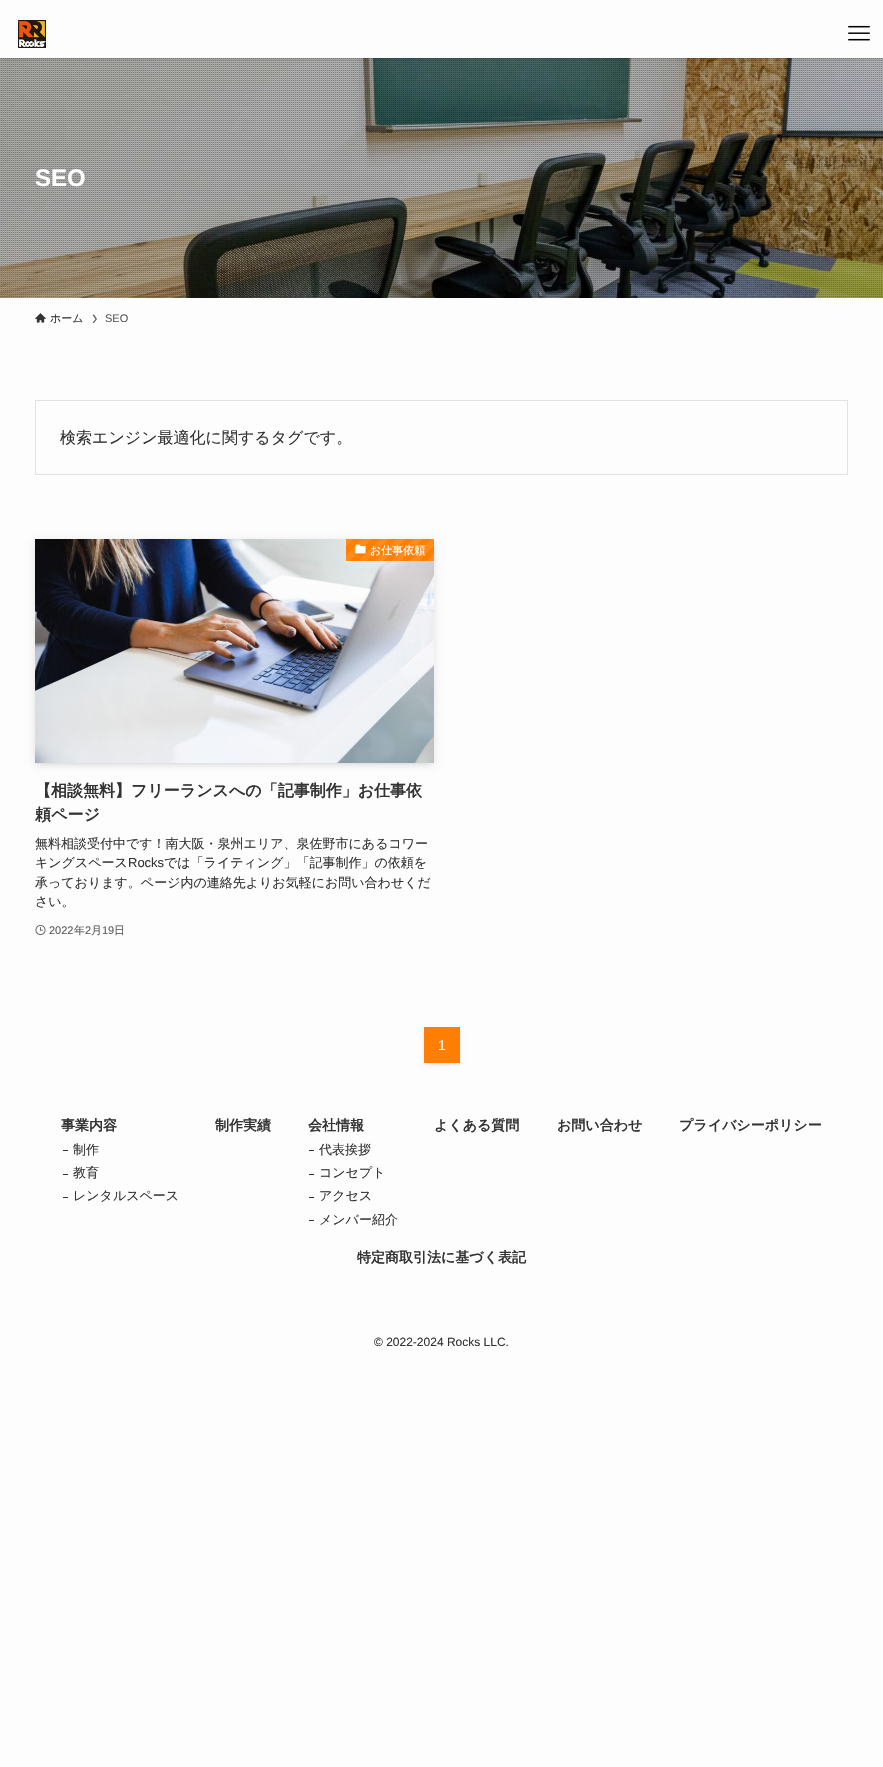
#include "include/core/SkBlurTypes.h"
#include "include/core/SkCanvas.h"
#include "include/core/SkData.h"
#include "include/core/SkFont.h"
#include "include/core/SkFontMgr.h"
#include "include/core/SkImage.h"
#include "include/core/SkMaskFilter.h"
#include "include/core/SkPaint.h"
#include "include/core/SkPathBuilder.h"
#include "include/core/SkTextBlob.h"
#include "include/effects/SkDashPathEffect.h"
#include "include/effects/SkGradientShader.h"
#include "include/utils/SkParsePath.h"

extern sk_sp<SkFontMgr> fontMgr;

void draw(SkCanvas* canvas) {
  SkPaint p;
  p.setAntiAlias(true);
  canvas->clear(SkColorSetRGB(253, 253, 253));
  canvas->drawImageRect(SkImages::DeferredFromEncodedData(SkData::MakeFromFileName("images/3.png")), SkRect::MakeLTRB(0, 58, 883, 298), SkSamplingOptions());
  canvas->drawImageRect(SkImages::DeferredFromEncodedData(SkData::MakeFromFileName("images/4.png")), SkRect::MakeLTRB(0, 58, 883, 298), SkSamplingOptions());
  canvas->save();
  canvas->clipRect(SkRect::MakeLTRB(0, 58, 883, 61));
  p.setColor(SkColorSetARGB(31, 0, 0, 0));
  p.setMaskFilter(SkMaskFilter::MakeBlur(kNormal_SkBlurStyle, 2));
  canvas->drawRect(SkRect::MakeLTRB(0, 1, 883, 59), p);
  p.setMaskFilter(nullptr);
  canvas->restore();
  canvas->drawImageRect(SkImages::DeferredFromEncodedData(SkData::MakeFromFileName("images/1.png")), SkRect::MakeLTRB(18, 20, 46, 48), SkSamplingOptions());
  canvas->drawImageRect(SkImages::DeferredFromEncodedData(SkData::MakeFromFileName("images/2.png")), SkRect::MakeLTRB(848, 25, 870, 41), SkSamplingOptions());
  canvas->drawImageRect(SkImages::DeferredFromEncodedData(SkData::MakeFromFileName("images/5.png")), SkRect::MakeLTRB(35, 313, 46, 323), SkSamplingOptions());
  p.setColor(SkColorSetRGB(91, 91, 91));
  canvas->drawPath(SkPathBuilder().moveTo(94, 314.5f).lineTo(92.5f, 315).lineTo(95.5f, 319).lineTo(92.5f, 323).lineTo(94, 323).lineTo(97, 319).close().detach(), p);
  p.setStyle(SkPaint::kStroke_Style);
  p.setStrokeWidth(1);
  p.setColor(SkColorSetRGB(226, 226, 226));
  canvas->drawRect(SkRect::MakeLTRB(35.5f, 400.5f, 847.5f, 474.5f), p);
  p.setStyle(SkPaint::kFill_Style);
  p.setColor(SkColorSetARGB(26, 0, 0, 0));
  p.setMaskFilter(SkMaskFilter::MakeBlur(kNormal_SkBlurStyle, 2));
  canvas->drawRect(SkRect::MakeLTRB(39, 547, 430, 763), p);
  p.setMaskFilter(nullptr);
  p.setMaskFilter(SkMaskFilter::MakeBlur(kNormal_SkBlurStyle, 4));
  canvas->drawRect(SkRect::MakeLTRB(35, 541, 434, 765), p);
  p.setMaskFilter(nullptr);
  canvas->drawImageRect(SkImages::DeferredFromEncodedData(SkData::MakeFromFileName("images/6.png")), SkRect::MakeLTRB(35, 539, 434, 763), SkSamplingOptions());
  {
    const SkColor colors[] = {SkColorSetRGB(254, 140, 28), SkColorSetRGB(254, 140, 28), SkColorSetRGB(254, 127, 3), SkColorSetRGB(254, 127, 3), SkColorSetRGB(254, 140, 28), SkColorSetRGB(254, 140, 28), SkColorSetRGB(254, 127, 3), SkColorSetRGB(254, 127, 3), SkColorSetRGB(254, 140, 28), SkColorSetRGB(254, 140, 28), SkColorSetRGB(254, 127, 3), SkColorSetRGB(254, 127, 3), SkColorSetRGB(254, 140, 28), SkColorSetRGB(254, 140, 28), SkColorSetRGB(254, 127, 3), SkColorSetRGB(254, 127, 3), SkColorSetRGB(254, 140, 28), SkColorSetRGB(254, 140, 28), SkColorSetRGB(254, 127, 3), SkColorSetRGB(254, 127, 3), SkColorSetRGB(254, 140, 28), SkColorSetRGB(254, 140, 28), SkColorSetRGB(254, 127, 3), SkColorSetRGB(254, 127, 3), SkColorSetRGB(254, 140, 28), SkColorSetRGB(254, 140, 28), SkColorSetRGB(254, 127, 3), SkColorSetRGB(254, 127, 3)};
    const float stops[] = {0, 0.07f, 0.07f, 0.14f, 0.14f, 0.21f, 0.21f, 0.29f, 0.29f, 0.36f, 0.36f, 0.43f, 0.43f, 0.5f, 0.5f, 0.57f, 0.57f, 0.64f, 0.64f, 0.71f, 0.71f, 0.79f, 0.79f, 0.86f, 0.86f, 0.93f, 0.93f, 1};
    const SkPoint ends[] = {{418, 578}, {358, 518}};
    p.setShader(SkGradientShader::MakeLinear(ends, colors, stops, 28, SkTileMode::kClamp));
    p.setAlpha(255);
  }
  canvas->drawRect(SkRect::MakeLTRB(346, 539, 434, 561), p);
  canvas->drawImageRect(SkImages::DeferredFromEncodedData(SkData::MakeFromFileName("images/7.png")), SkRect::MakeLTRB(355, 544, 366, 554), SkSamplingOptions());
  canvas->drawImageRect(SkImages::DeferredFromEncodedData(SkData::MakeFromFileName("images/8.png")), SkRect::MakeLTRB(35, 925, 46, 936), SkSamplingOptions());
  p.setShader(nullptr);
  p.setColor(SkColorSetARGB(26, 0, 0, 0));
  p.setMaskFilter(SkMaskFilter::MakeBlur(kNormal_SkBlurStyle, 2));
  canvas->drawRect(SkRect::MakeLTRB(428, 1035, 456, 1063), p);
  p.setMaskFilter(nullptr);
  p.setColor(SkColorSetARGB(13, 0, 0, 0));
  p.setMaskFilter(SkMaskFilter::MakeBlur(kNormal_SkBlurStyle, 2));
  canvas->drawRect(SkRect::MakeLTRB(424, 1029, 460, 1065), p);
  p.setMaskFilter(nullptr);
  p.setColor(SkColorSetRGB(254, 127, 3));
  canvas->drawRect(SkRect::MakeLTRB(424, 1027, 460, 1063), p);
  p.setColor(SkColorSetRGB(51, 51, 51));
  canvas->drawRect(SkRect::MakeLTRB(63, 1150, 68, 1151), p);
  canvas->drawRect(SkRect::MakeLTRB(63, 1174, 68, 1175), p);
  canvas->drawRect(SkRect::MakeLTRB(63, 1197, 68, 1198), p);
  canvas->drawRect(SkRect::MakeLTRB(309, 1150, 314, 1151), p);
  canvas->drawRect(SkRect::MakeLTRB(309, 1174, 314, 1175), p);
  canvas->drawRect(SkRect::MakeLTRB(309, 1197, 314, 1198), p);
  canvas->drawRect(SkRect::MakeLTRB(309, 1220, 314, 1221), p);
  SkFont font1(fontMgr->matchFamilyStyle("Liberation Sans", SkFontStyle::Bold()), 24);
  font1.setSubpixel(true);
  p.setColor(SK_ColorWHITE);
  canvas->drawString("SEO", 35, 186, font1, p);
  SkFont font2(fontMgr->matchFamilyStyle("WenQuanYi Zen Hei", SkFontStyle(500, SkFontStyle::kNormal_Width, SkFontStyle::kUpright_Slant)), 11);
  font2.setSubpixel(true);
  p.setColor(SkColorSetRGB(51, 51, 51));
  canvas->drawString("ホーム", 50, 322, font2, p);
  SkFont font3(fontMgr->matchFamilyStyle("Liberation Sans", SkFontStyle::Normal()), 11);
  font3.setSubpixel(true);
  p.setColor(SkColorSetRGB(91, 91, 91));
  canvas->drawString("SEO", 105, 322, font3, p);
  SkFont font4(fontMgr->matchFamilyStyle("WenQuanYi Zen Hei", SkFontStyle(500, SkFontStyle::kNormal_Width, SkFontStyle::kUpright_Slant)), 16);
  font4.setSubpixel(true);
  p.setColor(SkColorSetRGB(51, 51, 51));
  canvas->drawString("検索エンジン最適化に関するタグです。", 60, 443, font4, p);
  p.setColor(SK_ColorWHITE);
  canvas->drawString("お仕事依頼", 370, 554, font2, p);
  SkFont font5(fontMgr->matchFamilyStyle("WenQuanYi Zen Hei", SkFontStyle::Bold()), 16);
  font5.setSubpixel(true);
  p.setColor(SkColorSetRGB(51, 51, 51));
  canvas->drawString("【相談無料】フリーランスへの「記事制作」お仕事依", 35, 796, font5, p);
  canvas->drawString("頼ページ", 35, 820, font5, p);
  SkFont font6(fontMgr->matchFamilyStyle("WenQuanYi Zen Hei", SkFontStyle(500, SkFontStyle::kNormal_Width, SkFontStyle::kUpright_Slant)), 13);
  font6.setSubpixel(true);
  canvas->drawString("無料相談受付中です！南大阪・泉州エリア、泉佐野市にあるコワー", 35, 848, font6, p);
  canvas->drawString("キングスペース", 35, 867, font6, p);
  SkFont font7(fontMgr->matchFamilyStyle("Liberation Sans", SkFontStyle::Normal()), 13);
  font7.setSubpixel(true);
  canvas->drawString("Rocks", 128, 867, font7, p);
  canvas->drawString("では「ライティング」「記事制作」の依頼を", 164, 867, font6, p);
  canvas->drawString("承っております。ページ内の連絡先よりお気軽にお問い合わせくだ", 35, 887, font6, p);
  canvas->drawString("さい。", 35, 906, font6, p);
  p.setColor(SkColorSetRGB(91, 91, 91));
  canvas->drawString("2022", 49, 934, font3, p);
  canvas->drawString("年", 74, 934, font2, p);
  canvas->drawString("2", 85, 934, font3, p);
  canvas->drawString("月", 91, 934, font2, p);
  canvas->drawString("19", 102, 934, font3, p);
  canvas->drawString("日", 114, 934, font2, p);
  SkFont font8(fontMgr->matchFamilyStyle("Liberation Sans", SkFontStyle::Normal()), 14);
  font8.setSubpixel(true);
  p.setColor(SK_ColorWHITE);
  canvas->drawString("1", 438, 1050, font8, p);
  SkFont font9(fontMgr->matchFamilyStyle("WenQuanYi Zen Hei", SkFontStyle::Bold()), 14);
  font9.setSubpixel(true);
  p.setColor(SkColorSetRGB(51, 51, 51));
  canvas->drawString("事業内容", 61, 1130, font9, p);
  canvas->drawString("制作", 73, 1154, font6, p);
  canvas->drawString("教育", 73, 1177, font6, p);
  canvas->drawString("レンタルスペース", 73, 1200, font6, p);
  canvas->drawString("制作実績", 215, 1130, font9, p);
  canvas->drawString("会社情報", 308, 1130, font9, p);
  canvas->drawString("代表挨拶", 319, 1154, font6, p);
  canvas->drawString("コンセプト", 319, 1177, font6, p);
  canvas->drawString("アクセス", 319, 1200, font6, p);
  canvas->drawString("メンバー紹介", 319, 1224, font6, p);
  canvas->drawString("よくある質問", 434, 1130, font9, p);
  canvas->drawString("お問い合わせ", 557, 1130, font9, p);
  canvas->drawString("プライバシーポリシー", 679, 1130, font9, p);
  canvas->drawString("特定商取引法に基づく表記", 357, 1262, font9, p);
  SkFont font10(fontMgr->matchFamilyStyle("Liberation Sans", SkFontStyle::Normal()), 12);
  font10.setSubpixel(true);
  canvas->drawString("© 2022-2024 Rocks LLC.", 374, 1346, font10, p);
}
